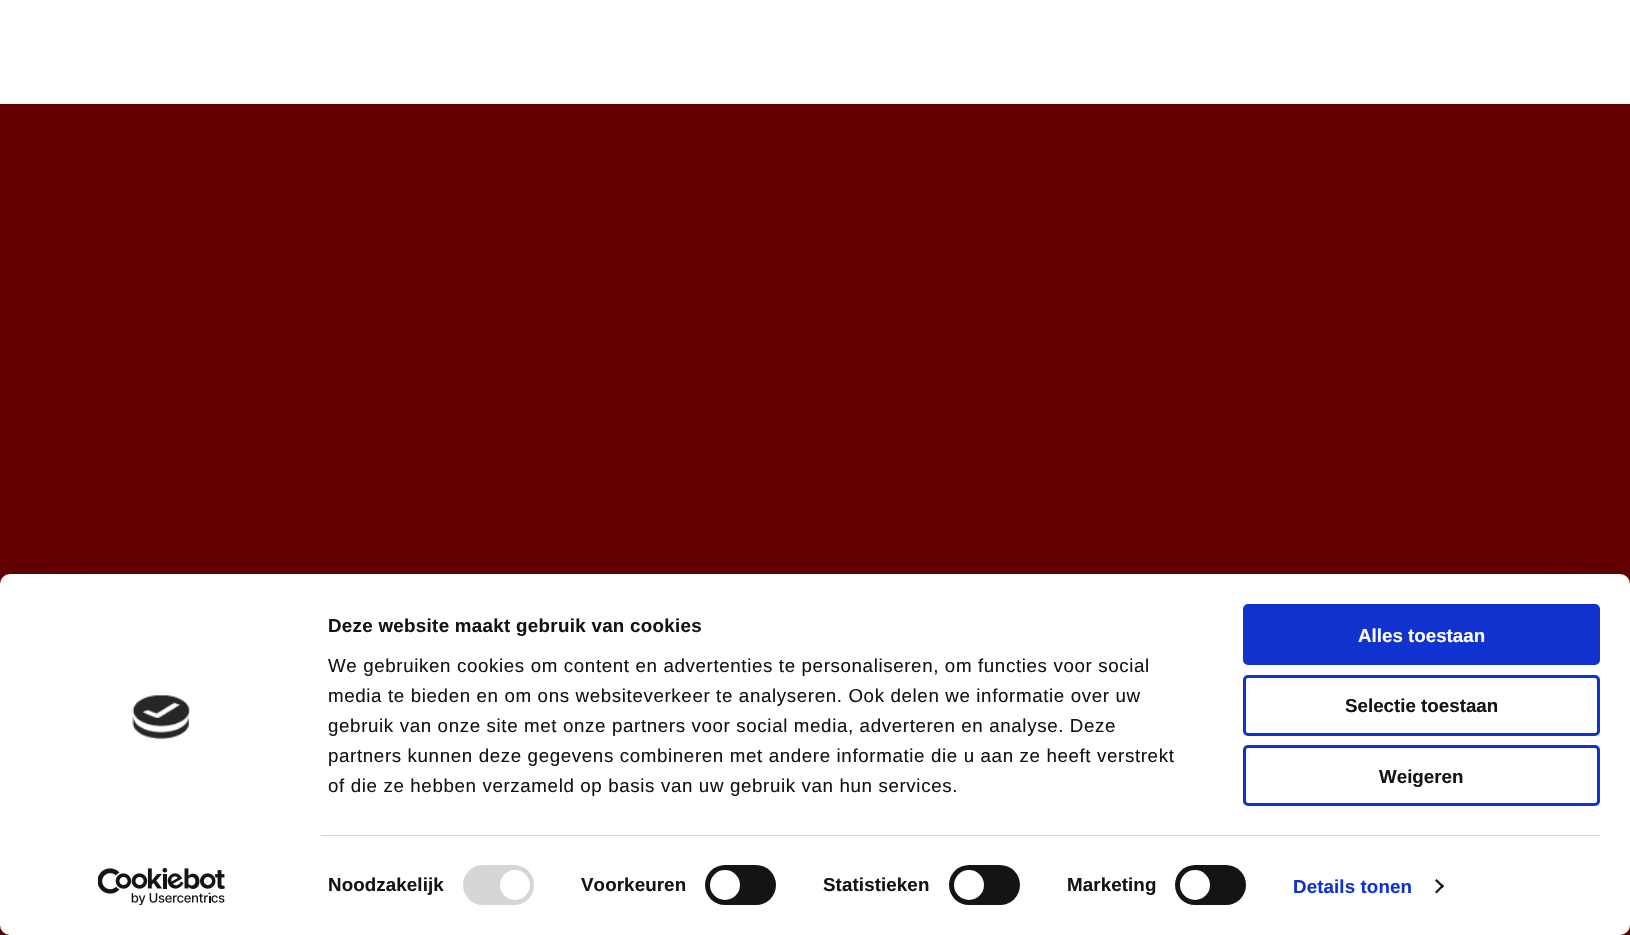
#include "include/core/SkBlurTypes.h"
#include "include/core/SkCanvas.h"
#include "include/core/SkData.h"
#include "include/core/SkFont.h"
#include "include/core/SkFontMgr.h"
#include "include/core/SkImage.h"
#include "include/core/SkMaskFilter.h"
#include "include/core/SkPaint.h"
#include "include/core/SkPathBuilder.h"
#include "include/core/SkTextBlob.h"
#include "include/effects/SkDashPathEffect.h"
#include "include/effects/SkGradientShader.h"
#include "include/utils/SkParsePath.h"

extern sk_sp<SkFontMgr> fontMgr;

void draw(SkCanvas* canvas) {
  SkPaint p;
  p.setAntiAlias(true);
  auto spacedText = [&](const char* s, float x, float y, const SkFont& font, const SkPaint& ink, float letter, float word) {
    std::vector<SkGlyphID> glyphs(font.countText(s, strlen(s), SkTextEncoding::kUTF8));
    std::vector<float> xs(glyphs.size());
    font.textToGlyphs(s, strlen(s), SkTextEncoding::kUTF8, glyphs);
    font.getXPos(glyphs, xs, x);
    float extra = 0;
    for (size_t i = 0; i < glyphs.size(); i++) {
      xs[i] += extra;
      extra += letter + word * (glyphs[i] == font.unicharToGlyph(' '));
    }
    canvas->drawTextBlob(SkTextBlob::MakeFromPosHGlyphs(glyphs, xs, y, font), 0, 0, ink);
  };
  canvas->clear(SK_ColorWHITE);
  p.setColor(SkColorSetRGB(101, 0, 0));
  canvas->drawRect(SkRect::MakeLTRB(0, 104, 1630, 935), p);
  p.setColor(SkColorSetARGB(77, 0, 0, 0));
  p.setMaskFilter(SkMaskFilter::MakeBlur(kNormal_SkBlurStyle, 44));
  canvas->drawRoundRect(SkRect::MakeLTRB(0, 611, 1630, 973), 10, 10, p);
  p.setMaskFilter(nullptr);
  p.setColor(SK_ColorWHITE);
  canvas->drawRoundRect(SkRect::MakeLTRB(0, 574, 1630, 935), 10, 10, p);
  canvas->drawImageRect(SkImages::DeferredFromEncodedData(SkData::MakeFromFileName("images/1.png")), SkRect::MakeLTRB(132, 695, 190, 740), SkSamplingOptions());
  canvas->drawImageRect(SkImages::DeferredFromEncodedData(SkData::MakeFromFileName("images/2.png")), SkRect::MakeLTRB(98, 868, 225, 905), SkSamplingOptions());
  p.setColor(SkColorSetRGB(214, 214, 214));
  canvas->drawRect(SkRect::MakeLTRB(321, 835, 1600, 836), p);
  canvas->drawRoundRect(SkRect::MakeLTRB(463, 865, 534, 905), 20, 20, p);
  p.setColor(SK_ColorWHITE);
  canvas->drawCircle(515, 885, 15, p);
  p.setColor(SkColorSetRGB(20, 20, 20));
  canvas->drawRoundRect(SkRect::MakeLTRB(705, 865, 776, 905), 20, 20, p);
  p.setColor(SK_ColorWHITE);
  canvas->drawCircle(725, 885, 15, p);
  p.setColor(SkColorSetRGB(20, 20, 20));
  canvas->drawRoundRect(SkRect::MakeLTRB(949, 865, 1020, 905), 20, 20, p);
  p.setColor(SK_ColorWHITE);
  canvas->drawCircle(969, 885, 15, p);
  p.setColor(SkColorSetRGB(20, 20, 20));
  canvas->drawRoundRect(SkRect::MakeLTRB(1175, 865, 1246, 905), 20, 20, p);
  p.setColor(SK_ColorWHITE);
  canvas->drawCircle(1195, 885, 15, p);
  p.setColor(SkColorSetRGB(20, 20, 20));
  canvas->drawPath(SkPathBuilder().moveTo(1436.5f, 879).lineTo(1444, 886).lineTo(1442.5f, 888).lineTo(1435, 880.5f).close().detach(), p);
  canvas->drawPath(SkPathBuilder().moveTo(1442.5f, 884.5f).lineTo(1444, 886).lineTo(1436.5f, 893.5f).lineTo(1435, 892).close().detach(), p);
  p.setColor(SkColorSetRGB(16, 50, 207));
  canvas->drawRoundRect(SkRect::MakeLTRB(1244.5f, 605.5f, 1598.5f, 663.5f), 3.5f, 3.5f, p);
  p.setStyle(SkPaint::kStroke_Style);
  p.setStrokeWidth(3);
  canvas->drawRoundRect(SkRect::MakeLTRB(1244.5f, 605.5f, 1598.5f, 663.5f), 3.5f, 3.5f, p);
  canvas->drawRoundRect(SkRect::MakeLTRB(1244.5f, 676.5f, 1598.5f, 734.5f), 3.5f, 3.5f, p);
  canvas->drawRoundRect(SkRect::MakeLTRB(1244.5f, 746.5f, 1598.5f, 804.5f), 3.5f, 3.5f, p);
  SkFont font1(fontMgr->matchFamilyStyle("Liberation Sans", SkFontStyle::Bold()), 18.75f);
  font1.setSubpixel(true);
  p.setStyle(SkPaint::kFill_Style);
  p.setColor(SkColorSetRGB(20, 20, 20));
  spacedText("Deze website maakt gebruik van cookies", 328, 632, font1, p, 0.3f, 0);
  SkFont font2(fontMgr->matchFamilyStyle("Liberation Sans", SkFontStyle::Normal()), 18.75f);
  font2.setSubpixel(true);
  spacedText("We gebruiken cookies om content en advertenties te personaliseren, om functies voor social", 328, 672, font2, p, 0.62f, 0);
  spacedText("media te bieden en om ons websiteverkeer te analyseren. Ook delen we informatie over uw", 328, 702, font2, p, 0.62f, 0);
  spacedText("gebruik van onze site met onze partners voor social media, adverteren en analyse. Deze", 328, 732, font2, p, 0.62f, 0);
  spacedText("partners kunnen deze gegevens combineren met andere informatie die u aan ze heeft verstrekt", 328, 762, font2, p, 0.62f, 0);
  spacedText("of die ze hebben verzameld op basis van uw gebruik van hun services.", 328, 792, font2, p, 0.62f, 0);
  spacedText("Noodzakelijk", 328, 891, font1, p, 0.1f, 0);
  spacedText("Voorkeuren", 581, 891, font1, p, 0.1f, 0);
  spacedText("Statistieken", 823, 891, font1, p, 0.1f, 0);
  spacedText("Marketing", 1067, 891, font1, p, 0.1f, 0);
  p.setColor(SkColorSetRGB(16, 50, 207));
  spacedText("Details tonen", 1293, 893, font1, p, 0.1f, 0);
  p.setColor(SK_ColorWHITE);
  canvas->drawString("Alles toestaan", 1358, 642, font1, p);
  p.setColor(SkColorSetRGB(20, 20, 20));
  canvas->drawString("Selectie toestaan", 1345, 712, font1, p);
  canvas->drawString("Weigeren", 1379, 783, font1, p);
}
